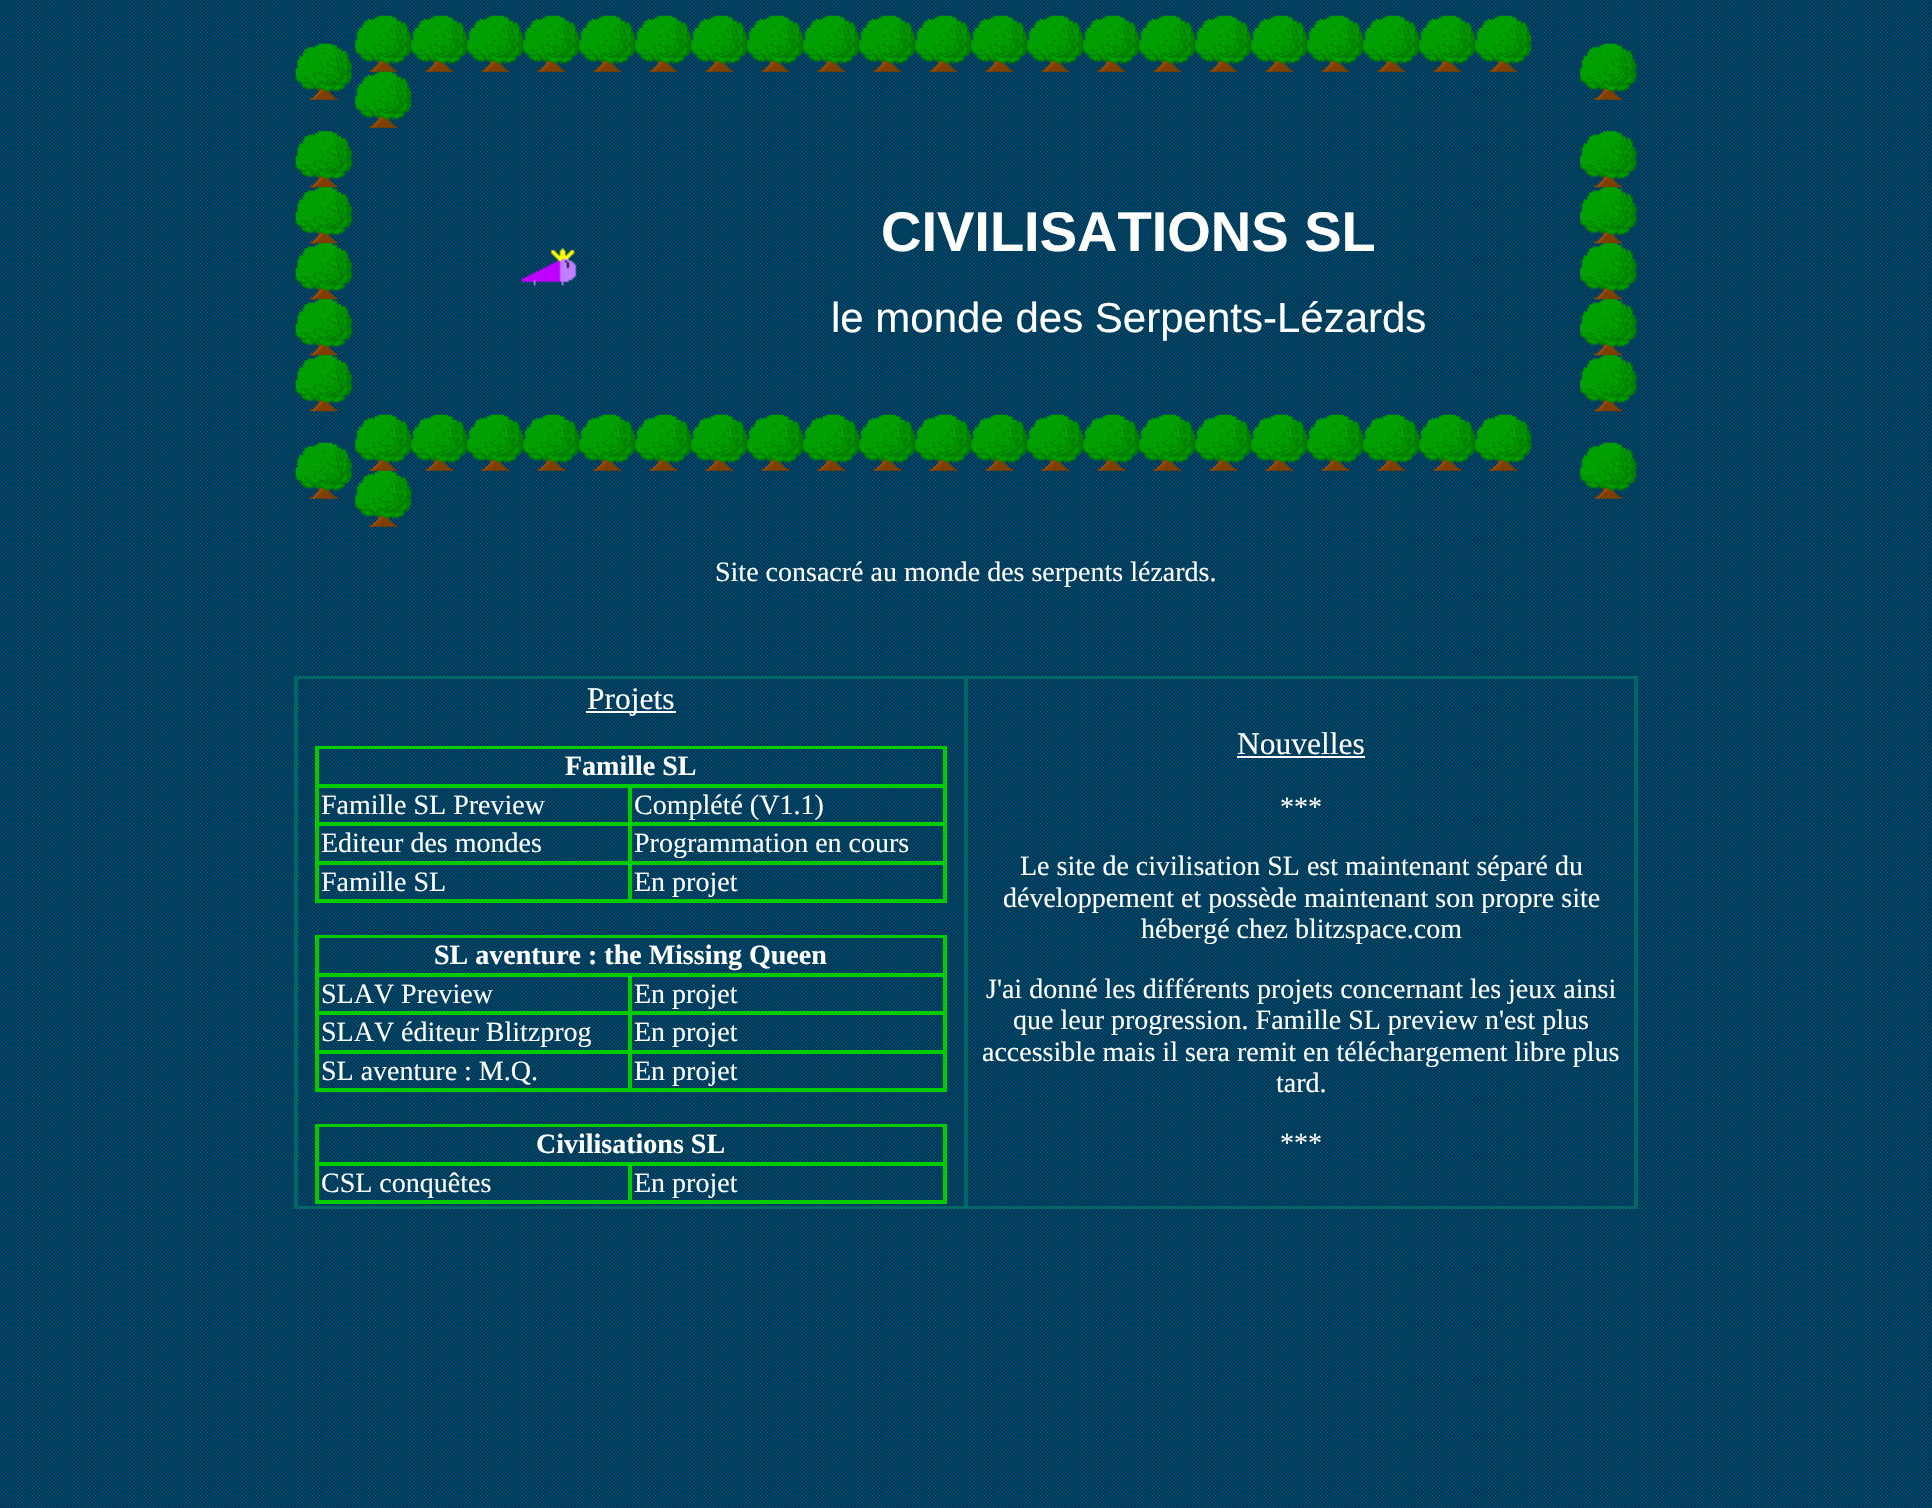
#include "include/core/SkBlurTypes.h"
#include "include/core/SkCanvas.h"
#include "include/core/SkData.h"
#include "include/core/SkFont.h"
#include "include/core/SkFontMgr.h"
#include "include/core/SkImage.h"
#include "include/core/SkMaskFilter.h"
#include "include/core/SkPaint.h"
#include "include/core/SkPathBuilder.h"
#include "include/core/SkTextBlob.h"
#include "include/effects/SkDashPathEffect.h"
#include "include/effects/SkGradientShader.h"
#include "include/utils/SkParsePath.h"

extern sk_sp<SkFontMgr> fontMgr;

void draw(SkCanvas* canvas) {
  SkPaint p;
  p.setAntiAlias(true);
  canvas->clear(SK_ColorWHITE);
  canvas->drawImageRect(SkImages::DeferredFromEncodedData(SkData::MakeFromFileName("images/1.png")), SkRect::MakeLTRB(0, 0, 1932, 1508), SkSamplingOptions());
  canvas->drawImageRect(SkImages::DeferredFromEncodedData(SkData::MakeFromFileName("images/2.png")), SkRect::MakeLTRB(295, 43, 352, 100), SkSamplingOptions());
  canvas->drawImageRect(SkImages::DeferredFromEncodedData(SkData::MakeFromFileName("images/3.png")), SkRect::MakeLTRB(355, 15, 412, 72), SkSamplingOptions());
  canvas->drawImageRect(SkImages::DeferredFromEncodedData(SkData::MakeFromFileName("images/4.png")), SkRect::MakeLTRB(411, 15, 468, 72), SkSamplingOptions());
  canvas->drawImageRect(SkImages::DeferredFromEncodedData(SkData::MakeFromFileName("images/4.png")), SkRect::MakeLTRB(467, 15, 524, 72), SkSamplingOptions());
  canvas->drawImageRect(SkImages::DeferredFromEncodedData(SkData::MakeFromFileName("images/4.png")), SkRect::MakeLTRB(523, 15, 580, 72), SkSamplingOptions());
  canvas->drawImageRect(SkImages::DeferredFromEncodedData(SkData::MakeFromFileName("images/4.png")), SkRect::MakeLTRB(579, 15, 636, 72), SkSamplingOptions());
  canvas->drawImageRect(SkImages::DeferredFromEncodedData(SkData::MakeFromFileName("images/4.png")), SkRect::MakeLTRB(635, 15, 692, 72), SkSamplingOptions());
  canvas->drawImageRect(SkImages::DeferredFromEncodedData(SkData::MakeFromFileName("images/4.png")), SkRect::MakeLTRB(691, 15, 748, 72), SkSamplingOptions());
  canvas->drawImageRect(SkImages::DeferredFromEncodedData(SkData::MakeFromFileName("images/5.png")), SkRect::MakeLTRB(747, 15, 804, 72), SkSamplingOptions());
  canvas->drawImageRect(SkImages::DeferredFromEncodedData(SkData::MakeFromFileName("images/6.png")), SkRect::MakeLTRB(803, 15, 860, 72), SkSamplingOptions());
  canvas->drawImageRect(SkImages::DeferredFromEncodedData(SkData::MakeFromFileName("images/4.png")), SkRect::MakeLTRB(859, 15, 916, 72), SkSamplingOptions());
  canvas->drawImageRect(SkImages::DeferredFromEncodedData(SkData::MakeFromFileName("images/4.png")), SkRect::MakeLTRB(915, 15, 972, 72), SkSamplingOptions());
  canvas->drawImageRect(SkImages::DeferredFromEncodedData(SkData::MakeFromFileName("images/4.png")), SkRect::MakeLTRB(971, 15, 1028, 72), SkSamplingOptions());
  canvas->drawImageRect(SkImages::DeferredFromEncodedData(SkData::MakeFromFileName("images/4.png")), SkRect::MakeLTRB(1027, 15, 1084, 72), SkSamplingOptions());
  canvas->drawImageRect(SkImages::DeferredFromEncodedData(SkData::MakeFromFileName("images/4.png")), SkRect::MakeLTRB(1083, 15, 1140, 72), SkSamplingOptions());
  canvas->drawImageRect(SkImages::DeferredFromEncodedData(SkData::MakeFromFileName("images/4.png")), SkRect::MakeLTRB(1139, 15, 1196, 72), SkSamplingOptions());
  canvas->drawImageRect(SkImages::DeferredFromEncodedData(SkData::MakeFromFileName("images/4.png")), SkRect::MakeLTRB(1195, 15, 1252, 72), SkSamplingOptions());
  canvas->drawImageRect(SkImages::DeferredFromEncodedData(SkData::MakeFromFileName("images/4.png")), SkRect::MakeLTRB(1251, 15, 1308, 72), SkSamplingOptions());
  canvas->drawImageRect(SkImages::DeferredFromEncodedData(SkData::MakeFromFileName("images/4.png")), SkRect::MakeLTRB(1307, 15, 1364, 72), SkSamplingOptions());
  canvas->drawImageRect(SkImages::DeferredFromEncodedData(SkData::MakeFromFileName("images/7.png")), SkRect::MakeLTRB(1363, 15, 1420, 72), SkSamplingOptions());
  canvas->drawImageRect(SkImages::DeferredFromEncodedData(SkData::MakeFromFileName("images/8.png")), SkRect::MakeLTRB(1419, 15, 1476, 72), SkSamplingOptions());
  canvas->drawImageRect(SkImages::DeferredFromEncodedData(SkData::MakeFromFileName("images/9.png")), SkRect::MakeLTRB(1475, 15, 1532, 72), SkSamplingOptions());
  canvas->drawImageRect(SkImages::DeferredFromEncodedData(SkData::MakeFromFileName("images/10.png")), SkRect::MakeLTRB(355, 71, 412, 128), SkSamplingOptions());
  canvas->drawImageRect(SkImages::DeferredFromEncodedData(SkData::MakeFromFileName("images/11.png")), SkRect::MakeLTRB(1580, 43, 1637, 100), SkSamplingOptions());
  canvas->drawImageRect(SkImages::DeferredFromEncodedData(SkData::MakeFromFileName("images/12.png")), SkRect::MakeLTRB(295, 131, 352, 188), SkSamplingOptions());
  canvas->drawImageRect(SkImages::DeferredFromEncodedData(SkData::MakeFromFileName("images/13.png")), SkRect::MakeLTRB(295, 187, 352, 244), SkSamplingOptions());
  canvas->drawImageRect(SkImages::DeferredFromEncodedData(SkData::MakeFromFileName("images/14.png")), SkRect::MakeLTRB(295, 243, 352, 300), SkSamplingOptions());
  canvas->drawImageRect(SkImages::DeferredFromEncodedData(SkData::MakeFromFileName("images/14.png")), SkRect::MakeLTRB(295, 299, 352, 356), SkSamplingOptions());
  canvas->drawImageRect(SkImages::DeferredFromEncodedData(SkData::MakeFromFileName("images/14.png")), SkRect::MakeLTRB(295, 355, 352, 412), SkSamplingOptions());
  canvas->drawImageRect(SkImages::DeferredFromEncodedData(SkData::MakeFromFileName("images/15.png")), SkRect::MakeLTRB(521, 248, 577, 286), SkSamplingOptions());
  canvas->drawImageRect(SkImages::DeferredFromEncodedData(SkData::MakeFromFileName("images/16.png")), SkRect::MakeLTRB(1580, 131, 1637, 188), SkSamplingOptions());
  canvas->drawImageRect(SkImages::DeferredFromEncodedData(SkData::MakeFromFileName("images/17.png")), SkRect::MakeLTRB(1580, 187, 1637, 244), SkSamplingOptions());
  canvas->drawImageRect(SkImages::DeferredFromEncodedData(SkData::MakeFromFileName("images/18.png")), SkRect::MakeLTRB(1580, 243, 1637, 300), SkSamplingOptions());
  canvas->drawImageRect(SkImages::DeferredFromEncodedData(SkData::MakeFromFileName("images/18.png")), SkRect::MakeLTRB(1580, 299, 1637, 356), SkSamplingOptions());
  canvas->drawImageRect(SkImages::DeferredFromEncodedData(SkData::MakeFromFileName("images/18.png")), SkRect::MakeLTRB(1580, 355, 1637, 412), SkSamplingOptions());
  canvas->drawImageRect(SkImages::DeferredFromEncodedData(SkData::MakeFromFileName("images/19.png")), SkRect::MakeLTRB(295, 442, 352, 499), SkSamplingOptions());
  canvas->drawImageRect(SkImages::DeferredFromEncodedData(SkData::MakeFromFileName("images/3.png")), SkRect::MakeLTRB(355, 414, 412, 471), SkSamplingOptions());
  canvas->drawImageRect(SkImages::DeferredFromEncodedData(SkData::MakeFromFileName("images/4.png")), SkRect::MakeLTRB(411, 414, 468, 471), SkSamplingOptions());
  canvas->drawImageRect(SkImages::DeferredFromEncodedData(SkData::MakeFromFileName("images/4.png")), SkRect::MakeLTRB(467, 414, 524, 471), SkSamplingOptions());
  canvas->drawImageRect(SkImages::DeferredFromEncodedData(SkData::MakeFromFileName("images/4.png")), SkRect::MakeLTRB(523, 414, 580, 471), SkSamplingOptions());
  canvas->drawImageRect(SkImages::DeferredFromEncodedData(SkData::MakeFromFileName("images/4.png")), SkRect::MakeLTRB(579, 414, 636, 471), SkSamplingOptions());
  canvas->drawImageRect(SkImages::DeferredFromEncodedData(SkData::MakeFromFileName("images/4.png")), SkRect::MakeLTRB(635, 414, 692, 471), SkSamplingOptions());
  canvas->drawImageRect(SkImages::DeferredFromEncodedData(SkData::MakeFromFileName("images/4.png")), SkRect::MakeLTRB(691, 414, 748, 471), SkSamplingOptions());
  canvas->drawImageRect(SkImages::DeferredFromEncodedData(SkData::MakeFromFileName("images/5.png")), SkRect::MakeLTRB(747, 414, 804, 471), SkSamplingOptions());
  canvas->drawImageRect(SkImages::DeferredFromEncodedData(SkData::MakeFromFileName("images/6.png")), SkRect::MakeLTRB(803, 414, 860, 471), SkSamplingOptions());
  canvas->drawImageRect(SkImages::DeferredFromEncodedData(SkData::MakeFromFileName("images/4.png")), SkRect::MakeLTRB(859, 414, 916, 471), SkSamplingOptions());
  canvas->drawImageRect(SkImages::DeferredFromEncodedData(SkData::MakeFromFileName("images/4.png")), SkRect::MakeLTRB(915, 414, 972, 471), SkSamplingOptions());
  canvas->drawImageRect(SkImages::DeferredFromEncodedData(SkData::MakeFromFileName("images/4.png")), SkRect::MakeLTRB(971, 414, 1028, 471), SkSamplingOptions());
  canvas->drawImageRect(SkImages::DeferredFromEncodedData(SkData::MakeFromFileName("images/4.png")), SkRect::MakeLTRB(1027, 414, 1084, 471), SkSamplingOptions());
  canvas->drawImageRect(SkImages::DeferredFromEncodedData(SkData::MakeFromFileName("images/4.png")), SkRect::MakeLTRB(1083, 414, 1140, 471), SkSamplingOptions());
  canvas->drawImageRect(SkImages::DeferredFromEncodedData(SkData::MakeFromFileName("images/4.png")), SkRect::MakeLTRB(1139, 414, 1196, 471), SkSamplingOptions());
  canvas->drawImageRect(SkImages::DeferredFromEncodedData(SkData::MakeFromFileName("images/4.png")), SkRect::MakeLTRB(1195, 414, 1252, 471), SkSamplingOptions());
  canvas->drawImageRect(SkImages::DeferredFromEncodedData(SkData::MakeFromFileName("images/4.png")), SkRect::MakeLTRB(1251, 414, 1308, 471), SkSamplingOptions());
  canvas->drawImageRect(SkImages::DeferredFromEncodedData(SkData::MakeFromFileName("images/4.png")), SkRect::MakeLTRB(1307, 414, 1364, 471), SkSamplingOptions());
  canvas->drawImageRect(SkImages::DeferredFromEncodedData(SkData::MakeFromFileName("images/7.png")), SkRect::MakeLTRB(1363, 414, 1420, 471), SkSamplingOptions());
  canvas->drawImageRect(SkImages::DeferredFromEncodedData(SkData::MakeFromFileName("images/8.png")), SkRect::MakeLTRB(1419, 414, 1476, 471), SkSamplingOptions());
  canvas->drawImageRect(SkImages::DeferredFromEncodedData(SkData::MakeFromFileName("images/9.png")), SkRect::MakeLTRB(1475, 414, 1532, 471), SkSamplingOptions());
  canvas->drawImageRect(SkImages::DeferredFromEncodedData(SkData::MakeFromFileName("images/10.png")), SkRect::MakeLTRB(355, 470, 412, 527), SkSamplingOptions());
  canvas->drawImageRect(SkImages::DeferredFromEncodedData(SkData::MakeFromFileName("images/3.png")), SkRect::MakeLTRB(1580, 442, 1637, 499), SkSamplingOptions());
  p.setStyle(SkPaint::kStroke_Style);
  p.setStrokeWidth(2);
  p.setColor(SkColorSetRGB(0, 102, 102));
  canvas->drawRect(SkRect::MakeLTRB(295, 677, 1637, 1208), p);
  canvas->drawRect(SkRect::MakeLTRB(297, 678, 965, 1207), p);
  p.setStyle(SkPaint::kFill_Style);
  p.setColor(SK_ColorWHITE);
  canvas->drawRect(SkRect::MakeLTRB(586, 711, 676, 713), p);
  p.setStyle(SkPaint::kStroke_Style);
  p.setColor(SkColorSetRGB(0, 204, 0));
  canvas->drawRect(SkRect::MakeLTRB(316, 747, 946, 902), p);
  canvas->drawRect(SkRect::MakeLTRB(318, 748, 944, 785), p);
  canvas->drawRect(SkRect::MakeLTRB(318, 787, 629, 823), p);
  canvas->drawRect(SkRect::MakeLTRB(631, 787, 944, 823), p);
  canvas->drawRect(SkRect::MakeLTRB(318, 825, 629, 862), p);
  canvas->drawRect(SkRect::MakeLTRB(631, 825, 944, 862), p);
  canvas->drawRect(SkRect::MakeLTRB(318, 864, 629, 900), p);
  canvas->drawRect(SkRect::MakeLTRB(631, 864, 944, 900), p);
  canvas->drawRect(SkRect::MakeLTRB(316, 936, 946, 1091), p);
  canvas->drawRect(SkRect::MakeLTRB(318, 937, 944, 974), p);
  canvas->drawRect(SkRect::MakeLTRB(318, 976, 629, 1012), p);
  canvas->drawRect(SkRect::MakeLTRB(631, 976, 944, 1012), p);
  canvas->drawRect(SkRect::MakeLTRB(318, 1014, 629, 1051), p);
  canvas->drawRect(SkRect::MakeLTRB(631, 1014, 944, 1051), p);
  canvas->drawRect(SkRect::MakeLTRB(318, 1053, 629, 1089), p);
  canvas->drawRect(SkRect::MakeLTRB(631, 1053, 944, 1089), p);
  canvas->drawRect(SkRect::MakeLTRB(316, 1125, 946, 1203), p);
  canvas->drawRect(SkRect::MakeLTRB(318, 1126, 944, 1163), p);
  canvas->drawRect(SkRect::MakeLTRB(318, 1165, 629, 1201), p);
  canvas->drawRect(SkRect::MakeLTRB(631, 1165, 944, 1201), p);
  p.setColor(SkColorSetRGB(0, 102, 102));
  canvas->drawRect(SkRect::MakeLTRB(967, 678, 1635, 1207), p);
  p.setStyle(SkPaint::kFill_Style);
  p.setColor(SK_ColorWHITE);
  canvas->drawRect(SkRect::MakeLTRB(1237, 756, 1365, 758), p);
  SkFont font1(fontMgr->matchFamilyStyle("Liberation Sans", SkFontStyle::Bold()), 56);
  font1.setSubpixel(true);
  canvas->drawString("CIVILISATIONS SL", 881, 251, font1, p);
  SkFont font2(fontMgr->matchFamilyStyle("Liberation Sans", SkFontStyle::Normal()), 42);
  font2.setSubpixel(true);
  canvas->drawString("le monde des Serpents-Lézards", 831, 332, font2, p);
  SkFont font3(fontMgr->matchFamilyStyle("Liberation Serif", SkFontStyle::Normal()), 28);
  font3.setSubpixel(true);
  canvas->drawString("Site consacré au monde des serpents lézards.", 715, 581, font3, p);
  SkFont font4(fontMgr->matchFamilyStyle("Liberation Serif", SkFontStyle::Normal()), 31.5f);
  font4.setSubpixel(true);
  canvas->drawString("Projets", 587, 709, font4, p);
  SkFont font5(fontMgr->matchFamilyStyle("Liberation Serif", SkFontStyle::Bold()), 28);
  font5.setSubpixel(true);
  canvas->drawString("Famille SL", 565, 775, font5, p);
  canvas->drawString("Famille SL Preview", 321, 814, font3, p);
  canvas->drawString("Complété (V1.1)", 634, 814, font3, p);
  canvas->drawString("Editeur des mondes", 321, 852, font3, p);
  canvas->drawString("Programmation en cours", 634, 852, font3, p);
  canvas->drawString("Famille SL", 321, 891, font3, p);
  canvas->drawString("En projet", 634, 891, font3, p);
  canvas->drawString("SL aventure : the Missing Queen", 434, 964, font5, p);
  canvas->drawString("SLAV Preview", 321, 1003, font3, p);
  canvas->drawString("En projet", 634, 1003, font3, p);
  canvas->drawString("SLAV éditeur Blitzprog", 321, 1041, font3, p);
  canvas->drawString("En projet", 634, 1041, font3, p);
  canvas->drawString("SL aventure : M.Q.", 321, 1080, font3, p);
  canvas->drawString("En projet", 634, 1080, font3, p);
  canvas->drawString("Civilisations SL", 536, 1153, font5, p);
  canvas->drawString("CSL conquêtes", 321, 1192, font3, p);
  canvas->drawString("En projet", 634, 1192, font3, p);
  canvas->drawString("Nouvelles", 1237, 754, font4, p);
  canvas->drawString("***", 1280, 816, font3, p);
  canvas->drawString("Le site de civilisation SL est maintenant séparé du", 1020, 875, font3, p);
  canvas->drawString("développement et possède maintenant son propre site", 1003, 907, font3, p);
  canvas->drawString("hébergé chez blitzspace.com", 1141, 938, font3, p);
  canvas->drawString("J'ai donné les différents projets concernant les jeux ainsi", 986, 998, font3, p);
  canvas->drawString("que leur progression. Famille SL preview n'est plus", 1013, 1029, font3, p);
  canvas->drawString("accessible mais il sera remit en téléchargement libre plus", 982, 1061, font3, p);
  canvas->drawString("tard.", 1276, 1092, font3, p);
  canvas->drawString("***", 1280, 1152, font3, p);
}
